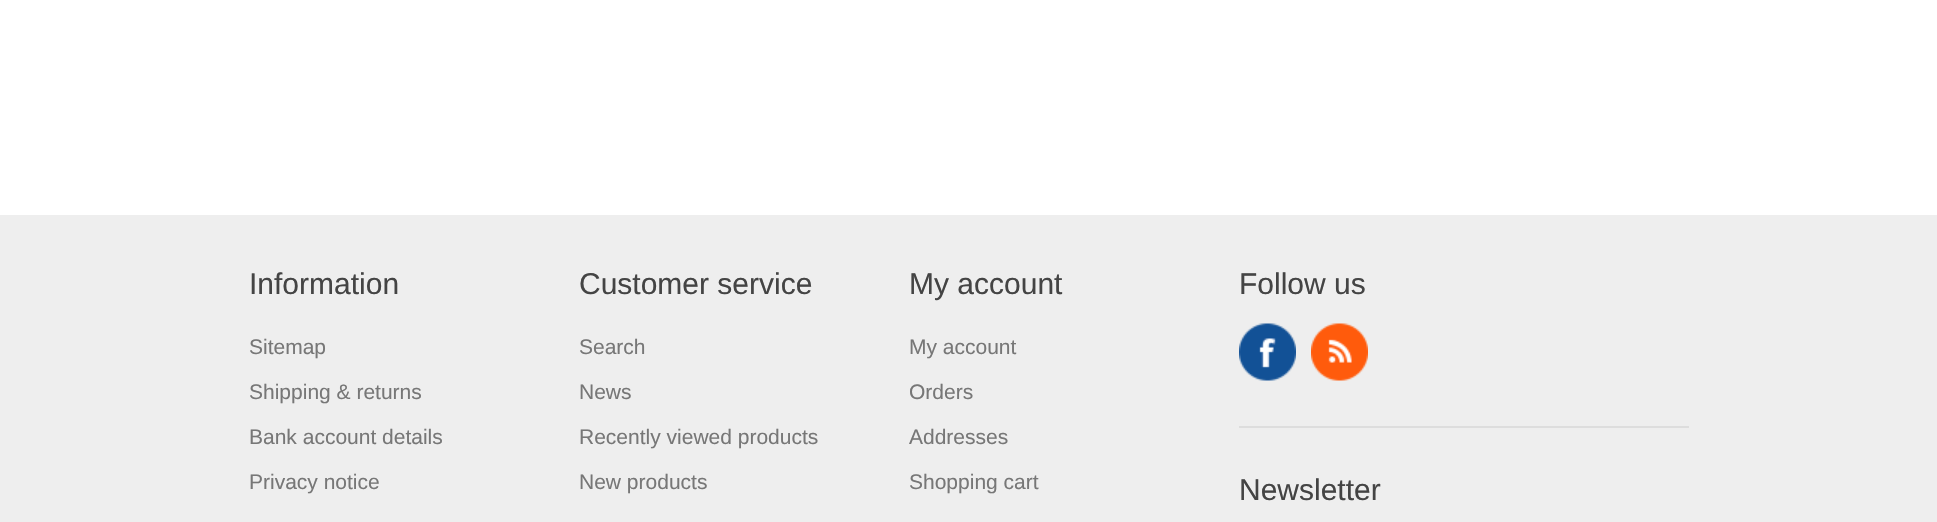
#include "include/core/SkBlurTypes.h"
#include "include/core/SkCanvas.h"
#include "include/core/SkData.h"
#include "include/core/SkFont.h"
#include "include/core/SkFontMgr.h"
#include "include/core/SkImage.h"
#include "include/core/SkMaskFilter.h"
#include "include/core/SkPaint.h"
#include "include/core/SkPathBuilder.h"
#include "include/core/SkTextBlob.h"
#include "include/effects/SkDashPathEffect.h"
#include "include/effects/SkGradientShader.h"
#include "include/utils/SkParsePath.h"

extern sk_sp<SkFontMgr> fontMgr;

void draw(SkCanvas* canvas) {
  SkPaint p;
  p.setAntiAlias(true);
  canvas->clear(SK_ColorWHITE);
  p.setColor(SkColorSetRGB(238, 238, 238));
  canvas->drawRect(SkRect::MakeLTRB(0, 215, 1937, 522), p);
  p.setColor(SkColorSetRGB(221, 221, 221));
  canvas->drawRect(SkRect::MakeLTRB(1239, 426, 1689, 428), p);
  canvas->drawImageRect(SkImages::DeferredFromEncodedData(SkData::MakeFromFileName("images/1.png")), SkRect::MakeLTRB(1239, 323, 1296, 381), SkSamplingOptions());
  canvas->drawImageRect(SkImages::DeferredFromEncodedData(SkData::MakeFromFileName("images/2.png")), SkRect::MakeLTRB(1311, 323, 1368, 381), SkSamplingOptions());
  SkFont font1(fontMgr->matchFamilyStyle("Liberation Sans", SkFontStyle::Normal()), 30);
  font1.setSubpixel(true);
  p.setColor(SkColorSetRGB(68, 68, 68));
  canvas->drawString("Information", 249, 294, font1, p);
  SkFont font2(fontMgr->matchFamilyStyle("Liberation Sans", SkFontStyle::Normal()), 21);
  font2.setSubpixel(true);
  p.setColor(SkColorSetRGB(119, 119, 119));
  canvas->drawString("Sitemap", 249, 354, font2, p);
  canvas->drawString("Shipping & returns", 249, 399, font2, p);
  canvas->drawString("Bank account details", 249, 444, font2, p);
  canvas->drawString("Privacy notice", 249, 489, font2, p);
  p.setColor(SkColorSetRGB(68, 68, 68));
  canvas->drawString("Customer service", 579, 294, font1, p);
  p.setColor(SkColorSetRGB(119, 119, 119));
  canvas->drawString("Search", 579, 354, font2, p);
  canvas->drawString("News", 579, 399, font2, p);
  canvas->drawString("Recently viewed products", 579, 444, font2, p);
  canvas->drawString("New products", 579, 489, font2, p);
  p.setColor(SkColorSetRGB(68, 68, 68));
  canvas->drawString("My account", 909, 294, font1, p);
  p.setColor(SkColorSetRGB(119, 119, 119));
  canvas->drawString("My account", 909, 354, font2, p);
  canvas->drawString("Orders", 909, 399, font2, p);
  canvas->drawString("Addresses", 909, 444, font2, p);
  canvas->drawString("Shopping cart", 909, 489, font2, p);
  p.setColor(SkColorSetRGB(68, 68, 68));
  canvas->drawString("Follow us", 1239, 294, font1, p);
  canvas->drawString("Newsletter", 1239, 500, font1, p);
}
